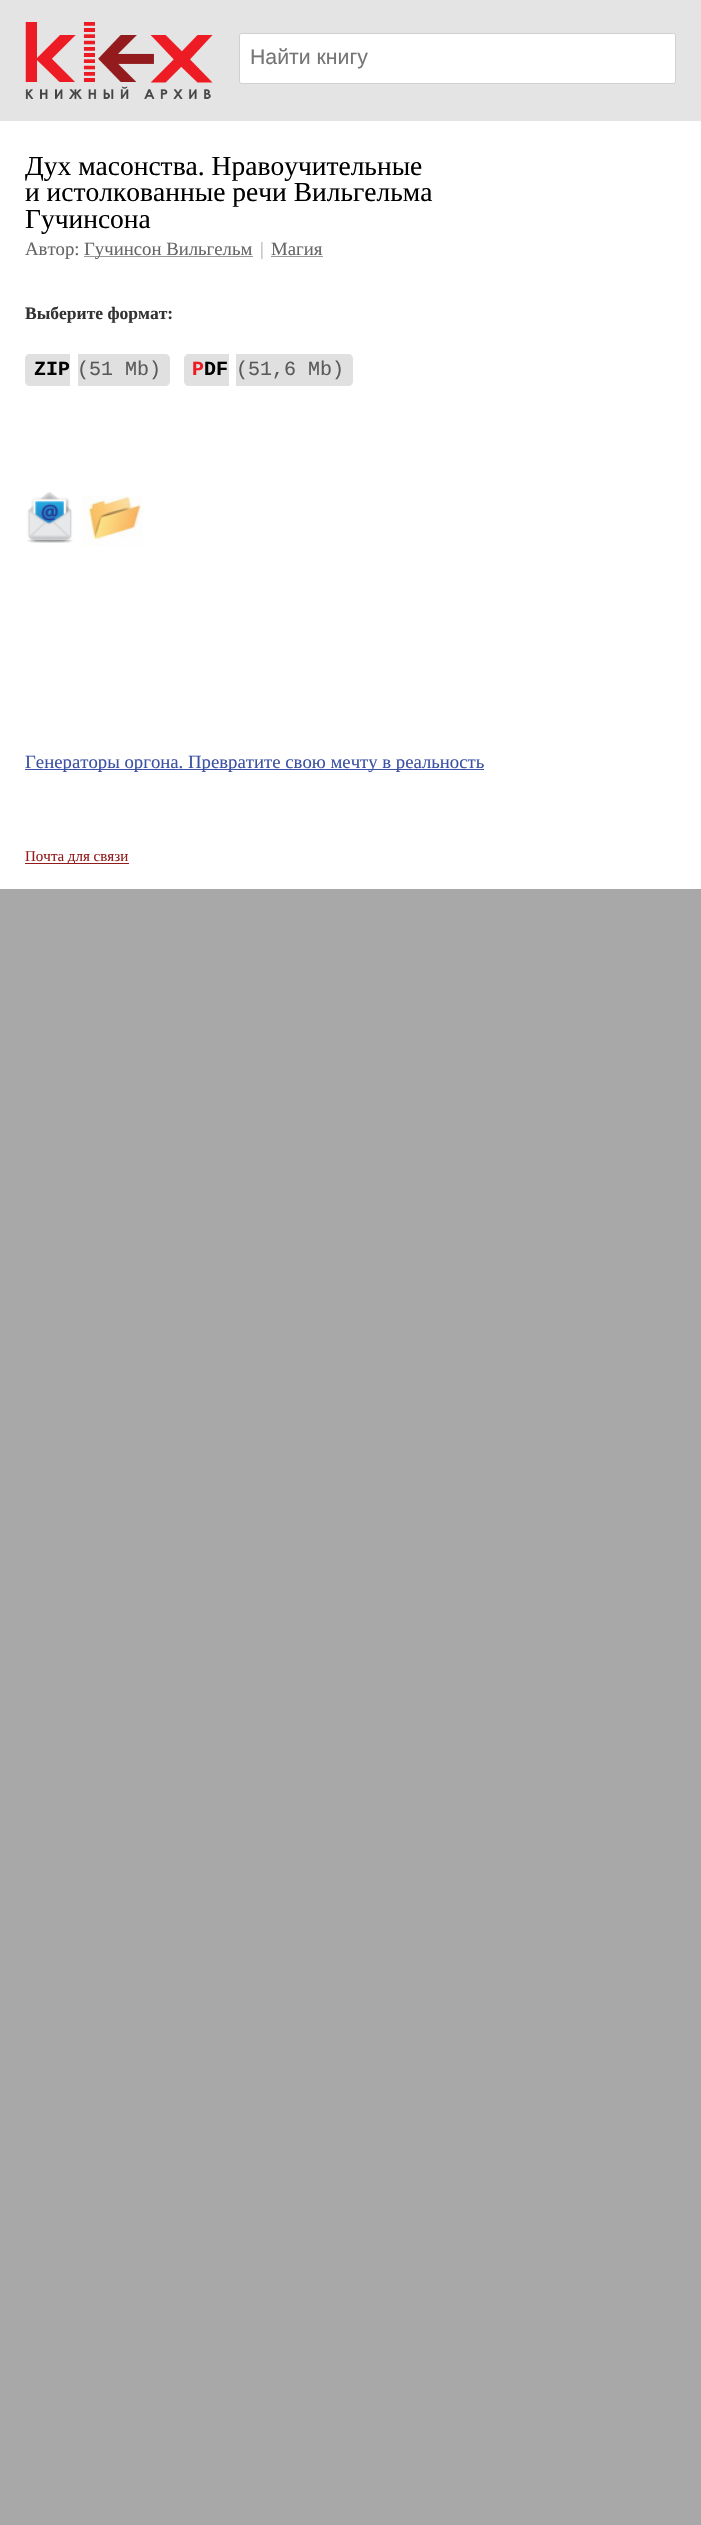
#include "include/core/SkBlurTypes.h"
#include "include/core/SkCanvas.h"
#include "include/core/SkData.h"
#include "include/core/SkFont.h"
#include "include/core/SkFontMgr.h"
#include "include/core/SkImage.h"
#include "include/core/SkMaskFilter.h"
#include "include/core/SkPaint.h"
#include "include/core/SkPathBuilder.h"
#include "include/core/SkTextBlob.h"
#include "include/effects/SkDashPathEffect.h"
#include "include/effects/SkGradientShader.h"
#include "include/utils/SkParsePath.h"

extern sk_sp<SkFontMgr> fontMgr;

void draw(SkCanvas* canvas) {
  SkPaint p;
  p.setAntiAlias(true);
  canvas->clear(SkColorSetRGB(168, 168, 168));
  p.setColor(SK_ColorWHITE);
  canvas->drawRect(SkRect::MakeLTRB(0, 121, 701, 889), p);
  p.setColor(SkColorSetRGB(228, 228, 228));
  canvas->drawRect(SkRect::MakeLTRB(0, 0, 701, 121), p);
  canvas->drawImageRect(SkImages::DeferredFromEncodedData(SkData::MakeFromFileName("images/1.png")), SkRect::MakeLTRB(25, 22, 213, 99), SkSamplingOptions());
  p.setColor(SK_ColorWHITE);
  canvas->drawRoundRect(SkRect::MakeLTRB(239.5f, 33.5f, 675.5f, 83.5f), 2, 2, p);
  p.setStyle(SkPaint::kStroke_Style);
  p.setStrokeWidth(1);
  p.setColor(SkColorSetRGB(208, 208, 208));
  canvas->drawRoundRect(SkRect::MakeLTRB(239.5f, 33.5f, 675.5f, 83.5f), 2, 2, p);
  p.setStyle(SkPaint::kFill_Style);
  p.setColor(SkColorSetRGB(153, 153, 153));
  canvas->drawRect(SkRect::MakeLTRB(84, 256, 253, 257), p);
  canvas->drawRect(SkRect::MakeLTRB(271, 256, 323, 257), p);
  p.setColor(SkColorSetRGB(224, 224, 224));
  canvas->drawPath(SkPathBuilder().moveTo(30, 354).lineTo(70, 354).lineTo(70, 386).lineTo(30, 386).cubicTo(27, 386, 25, 384, 25, 381).lineTo(25, 359).cubicTo(25, 356, 27, 354, 30, 354).close().detach(), p);
  canvas->drawPath(SkPathBuilder().moveTo(78, 354).lineTo(165, 354).cubicTo(168, 354, 170, 356, 170, 359).lineTo(170, 381).cubicTo(170, 384, 168, 386, 165, 386).lineTo(78, 386).close().detach(), p);
  canvas->drawPath(SkPathBuilder().moveTo(189, 354).lineTo(204, 354).lineTo(204, 386).lineTo(189, 386).cubicTo(186, 386, 184, 384, 184, 381).lineTo(184, 359).cubicTo(184, 356, 186, 354, 189, 354).close().detach(), p);
  canvas->drawRect(SkRect::MakeLTRB(204, 354, 229, 386), p);
  canvas->drawPath(SkPathBuilder().moveTo(236, 354).lineTo(348, 354).cubicTo(351, 354, 353, 356, 353, 359).lineTo(353, 381).cubicTo(353, 384, 351, 386, 348, 386).lineTo(236, 386).close().detach(), p);
  canvas->drawImageRect(SkImages::DeferredFromEncodedData(SkData::MakeFromFileName("images/2.png")), SkRect::MakeLTRB(26, 492, 73, 543), SkSamplingOptions());
  canvas->drawImageRect(SkImages::DeferredFromEncodedData(SkData::MakeFromFileName("images/3.png")), SkRect::MakeLTRB(81, 496, 143, 547), SkSamplingOptions());
  p.setColor(SkColorSetRGB(60, 82, 164));
  canvas->drawRect(SkRect::MakeLTRB(25, 769, 484, 770), p);
  p.setColor(SkColorSetRGB(147, 27, 30));
  canvas->drawRect(SkRect::MakeLTRB(25, 863, 129, 864), p);
  SkFont font1(fontMgr->matchFamilyStyle("Liberation Sans", SkFontStyle::Normal()), 21.25f);
  font1.setSubpixel(true);
  p.setColor(SkColorSetRGB(117, 117, 117));
  canvas->drawString("Найти книгу", 250, 64, font1, p);
  SkFont font2(fontMgr->matchFamilyStyle("Liberation Serif", SkFontStyle::Normal()), 27.5f);
  font2.setSubpixel(true);
  p.setColor(SK_ColorBLACK);
  canvas->drawString("Дух масонства. Нравоучительные", 25, 175, font2, p);
  canvas->drawString("и истолкованные речи Вильгельма", 25, 201, font2, p);
  canvas->drawString("Гучинсона", 25, 228, font2, p);
  SkFont font3(fontMgr->matchFamilyStyle("Liberation Serif", SkFontStyle::Normal()), 18.75f);
  font3.setSubpixel(true);
  p.setColor(SkColorSetRGB(102, 102, 102));
  canvas->drawString("Автор:", 25, 255, font3, p);
  canvas->drawString("Гучинсон Вильгельм", 84, 255, font3, p);
  p.setColor(SkColorSetRGB(179, 179, 179));
  canvas->drawString("|", 260, 255, font3, p);
  p.setColor(SkColorSetRGB(102, 102, 102));
  canvas->drawString("Магия", 271, 255, font3, p);
  SkFont font4(fontMgr->matchFamilyStyle("Liberation Serif", SkFontStyle::Bold()), 17.5f);
  font4.setSubpixel(true);
  p.setColor(SkColorSetRGB(51, 51, 51));
  canvas->drawString("Выберите формат:", 25, 319, font4, p);
  SkFont font5(fontMgr->matchFamilyStyle("Liberation Mono", SkFontStyle::Bold()), 20);
  font5.setSubpixel(true);
  p.setColor(SK_ColorBLACK);
  canvas->drawString("ZIP", 34, 375, font5, p);
  SkFont font6(fontMgr->matchFamilyStyle("Liberation Mono", SkFontStyle::Normal()), 20);
  font6.setSubpixel(true);
  p.setColor(SkColorSetRGB(90, 90, 90));
  canvas->drawString("(51 Mb)", 77, 375, font6, p);
  p.setColor(SkColorSetRGB(237, 28, 36));
  canvas->drawString("P", 192, 375, font5, p);
  p.setColor(SK_ColorBLACK);
  canvas->drawString("DF", 204, 375, font5, p);
  p.setColor(SkColorSetRGB(90, 90, 90));
  canvas->drawString("(51,6 Mb)", 236, 375, font6, p);
  p.setColor(SkColorSetRGB(60, 82, 164));
  canvas->drawString("Генераторы оргона. Превратите свою мечту в реальность", 25, 768, font3, p);
  SkFont font7(fontMgr->matchFamilyStyle("Liberation Serif", SkFontStyle::Normal()), 15);
  font7.setSubpixel(true);
  p.setColor(SkColorSetRGB(147, 27, 30));
  canvas->drawString("Почта для связи", 25, 861, font7, p);
}
